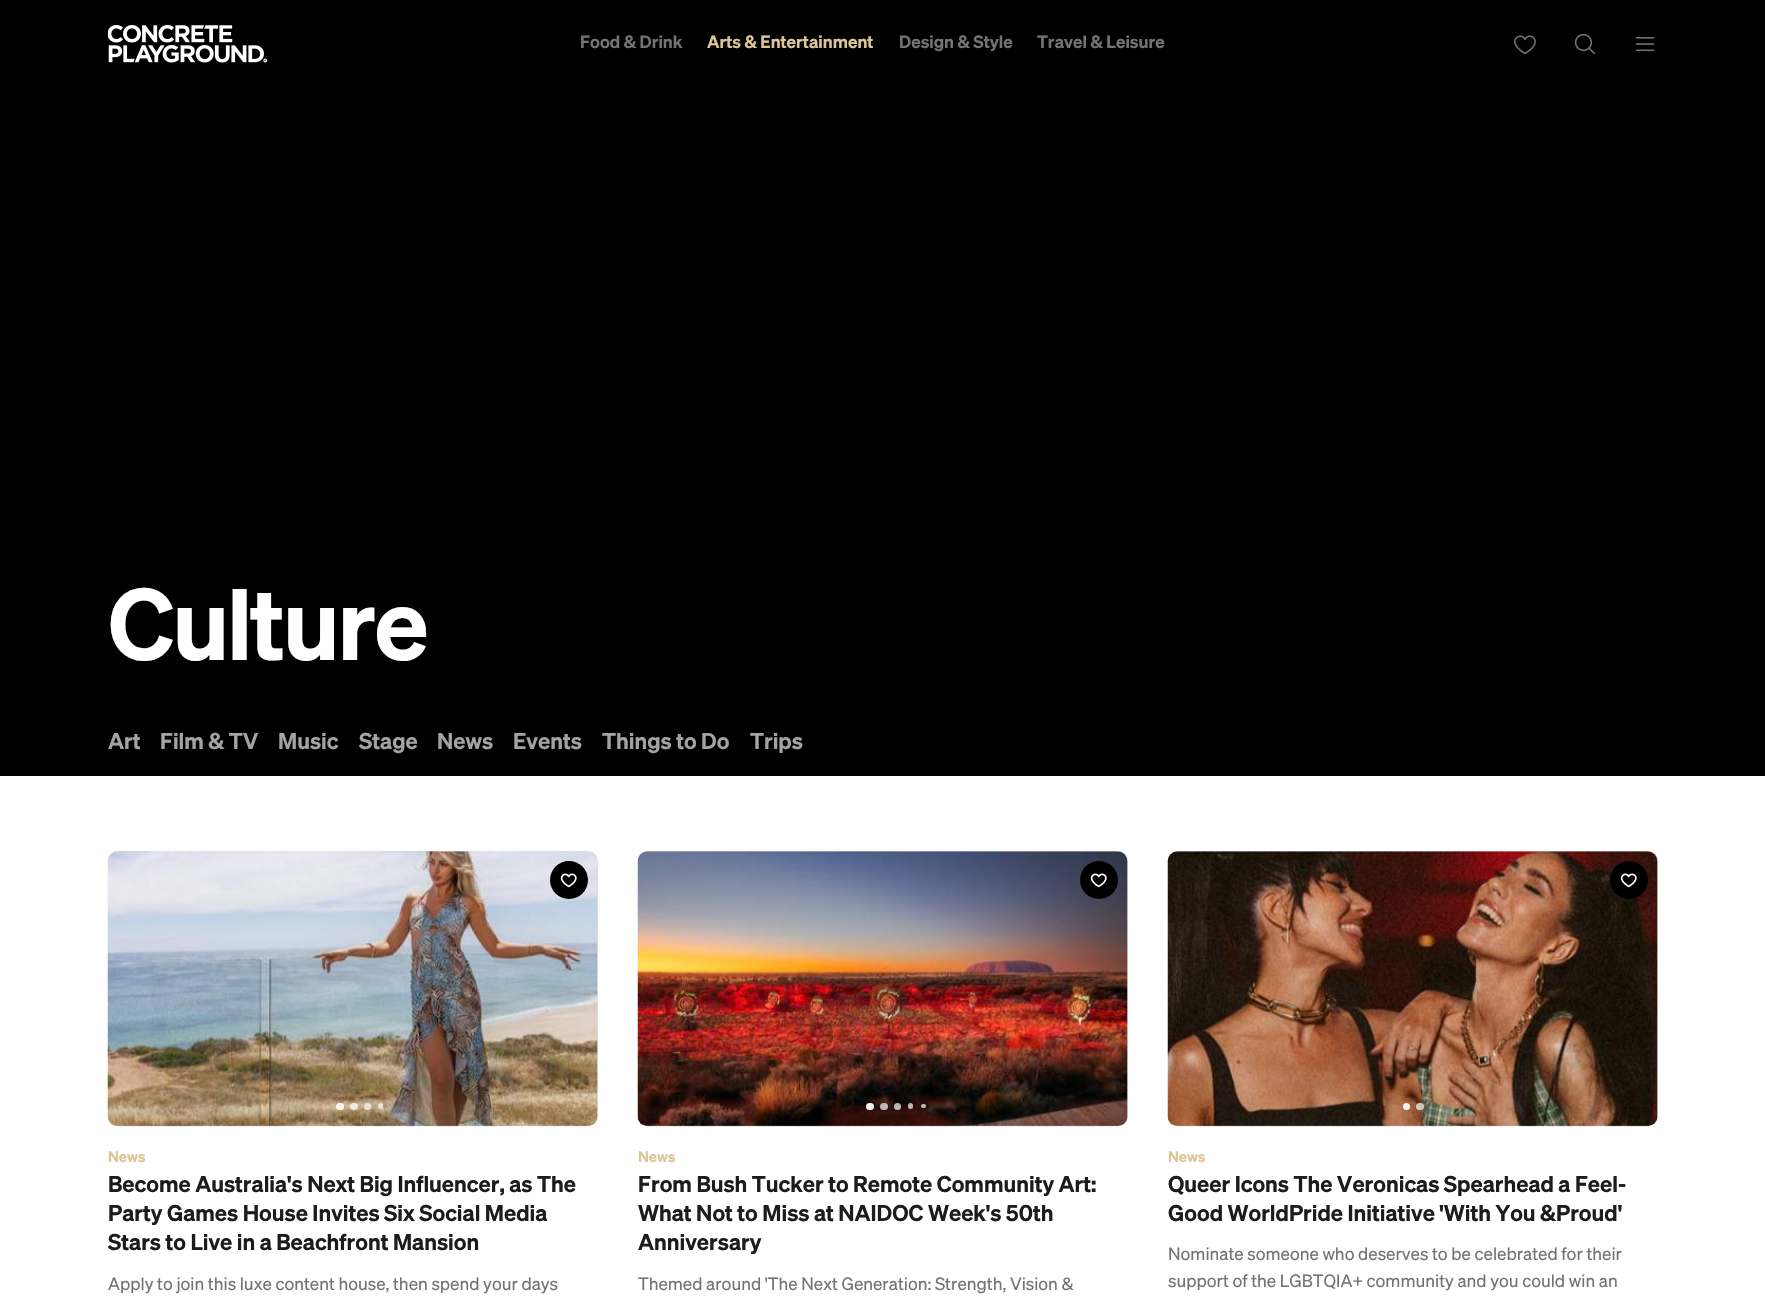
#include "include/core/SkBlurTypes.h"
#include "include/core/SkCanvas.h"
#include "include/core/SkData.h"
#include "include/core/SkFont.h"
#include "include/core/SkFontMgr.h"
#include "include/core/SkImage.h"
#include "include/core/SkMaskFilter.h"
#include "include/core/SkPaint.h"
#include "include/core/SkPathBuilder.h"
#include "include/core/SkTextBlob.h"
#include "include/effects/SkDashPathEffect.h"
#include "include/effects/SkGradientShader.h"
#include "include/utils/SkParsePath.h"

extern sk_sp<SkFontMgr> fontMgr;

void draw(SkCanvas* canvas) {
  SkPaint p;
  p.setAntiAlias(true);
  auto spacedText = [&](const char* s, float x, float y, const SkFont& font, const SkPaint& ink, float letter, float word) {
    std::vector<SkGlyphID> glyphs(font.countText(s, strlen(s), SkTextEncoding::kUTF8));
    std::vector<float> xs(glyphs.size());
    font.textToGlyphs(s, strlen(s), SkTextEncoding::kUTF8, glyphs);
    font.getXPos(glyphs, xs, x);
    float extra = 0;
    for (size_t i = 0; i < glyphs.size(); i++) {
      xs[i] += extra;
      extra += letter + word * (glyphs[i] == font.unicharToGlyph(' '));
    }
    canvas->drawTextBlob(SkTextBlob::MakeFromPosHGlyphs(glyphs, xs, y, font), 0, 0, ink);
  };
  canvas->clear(SK_ColorWHITE);
  p.setColor(SK_ColorBLACK);
  canvas->drawRect(SkRect::MakeLTRB(0, 0, 1765, 776), p);
  canvas->drawImageRect(SkImages::DeferredFromEncodedData(SkData::MakeFromFileName("images/1.png")), SkRect::MakeLTRB(108, 25, 268, 63), SkSamplingOptions());
  canvas->drawImageRect(SkImages::DeferredFromEncodedData(SkData::MakeFromFileName("images/2.png")), SkRect::MakeLTRB(1514, 35, 1536, 55), SkSamplingOptions());
  canvas->drawImageRect(SkImages::DeferredFromEncodedData(SkData::MakeFromFileName("images/3.png")), SkRect::MakeLTRB(1574, 33, 1596, 55), SkSamplingOptions());
  canvas->drawImageRect(SkImages::DeferredFromEncodedData(SkData::MakeFromFileName("images/4.png")), SkRect::MakeLTRB(1635, 37, 1655, 52), SkSamplingOptions());
  p.setColor(SkColorSetRGB(221, 221, 221));
  canvas->drawRoundRect(SkRect::MakeLTRB(108, 851, 598, 1126), 10, 10, p);
  canvas->drawImageRect(SkImages::DeferredFromEncodedData(SkData::MakeFromFileName("images/5.png")), SkRect::MakeLTRB(107, 851, 598, 1127), SkSamplingOptions());
  p.setColor(SkColorSetARGB(242, 255, 255, 255));
  canvas->drawRoundRect(SkRect::MakeLTRB(336, 1103, 344, 1110), 3.5f, 3.5f, p);
  p.setColor(SkColorSetARGB(179, 255, 255, 255));
  canvas->drawRoundRect(SkRect::MakeLTRB(350, 1103, 358, 1110), 3.5f, 3.5f, p);
  canvas->drawCircle(367.5f, 1106.5f, 3.5f, p);
  canvas->drawRoundRect(SkRect::MakeLTRB(378, 1103, 383, 1109), 2.5f, 2.5f, p);
  p.setColor(SK_ColorBLACK);
  canvas->drawCircle(569, 880, 19, p);
  canvas->drawImageRect(SkImages::DeferredFromEncodedData(SkData::MakeFromFileName("images/6.png")), SkRect::MakeLTRB(560, 873, 577, 888), SkSamplingOptions());
  p.setColor(SkColorSetRGB(221, 221, 221));
  canvas->drawRoundRect(SkRect::MakeLTRB(638, 851, 1128, 1126), 10, 10, p);
  canvas->drawImageRect(SkImages::DeferredFromEncodedData(SkData::MakeFromFileName("images/7.png")), SkRect::MakeLTRB(637, 851, 1128, 1127), SkSamplingOptions());
  p.setColor(SkColorSetARGB(242, 255, 255, 255));
  canvas->drawRoundRect(SkRect::MakeLTRB(866, 1103, 874, 1110), 3.5f, 3.5f, p);
  p.setColor(SkColorSetARGB(179, 255, 255, 255));
  canvas->drawRoundRect(SkRect::MakeLTRB(880, 1103, 888, 1110), 3.5f, 3.5f, p);
  canvas->drawCircle(897.5f, 1106.5f, 3.5f, p);
  canvas->drawRoundRect(SkRect::MakeLTRB(908, 1103, 913, 1109), 2.5f, 2.5f, p);
  canvas->drawRoundRect(SkRect::MakeLTRB(921, 1104, 926, 1108), 2, 2, p);
  p.setColor(SK_ColorBLACK);
  canvas->drawCircle(1099, 880, 19, p);
  canvas->drawImageRect(SkImages::DeferredFromEncodedData(SkData::MakeFromFileName("images/6.png")), SkRect::MakeLTRB(1090, 873, 1107, 888), SkSamplingOptions());
  p.setColor(SkColorSetRGB(221, 221, 221));
  canvas->drawRoundRect(SkRect::MakeLTRB(1168, 851, 1658, 1126), 10, 10, p);
  canvas->drawImageRect(SkImages::DeferredFromEncodedData(SkData::MakeFromFileName("images/8.png")), SkRect::MakeLTRB(1167, 851, 1658, 1127), SkSamplingOptions());
  p.setColor(SkColorSetARGB(242, 255, 255, 255));
  canvas->drawCircle(1406.5f, 1106.5f, 3.5f, p);
  p.setColor(SkColorSetARGB(179, 255, 255, 255));
  canvas->drawRoundRect(SkRect::MakeLTRB(1416, 1103, 1424, 1110), 3.5f, 3.5f, p);
  p.setColor(SK_ColorBLACK);
  canvas->drawCircle(1629, 880, 19, p);
  canvas->drawImageRect(SkImages::DeferredFromEncodedData(SkData::MakeFromFileName("images/6.png")), SkRect::MakeLTRB(1620, 873, 1637, 888), SkSamplingOptions());
  SkFont font1(fontMgr->matchFamilyStyle("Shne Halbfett", SkFontStyle(600, SkFontStyle::kNormal_Width, SkFontStyle::kUpright_Slant)), 17.5f);
  font1.setSubpixel(true);
  p.setColor(SkColorSetRGB(115, 115, 115));
  canvas->drawString("Food & Drink", 580, 48, font1, p);
  p.setColor(SkColorSetRGB(221, 197, 150));
  canvas->drawString("Arts & Entertainment", 707, 48, font1, p);
  p.setColor(SkColorSetRGB(115, 115, 115));
  canvas->drawString("Design & Style", 899, 48, font1, p);
  canvas->drawString("Travel & Leisure", 1037, 48, font1, p);
  SkFont font2(fontMgr->matchFamilyStyle("Shne Halbfett", SkFontStyle(600, SkFontStyle::kNormal_Width, SkFontStyle::kUpright_Slant)), 100);
  font2.setSubpixel(true);
  p.setColor(SK_ColorWHITE);
  spacedText("Culture", 108, 660, font2, p, -2, 0);
  SkFont font3(fontMgr->matchFamilyStyle("Shne Halbfett", SkFontStyle(600, SkFontStyle::kNormal_Width, SkFontStyle::kUpright_Slant)), 22.5f);
  font3.setSubpixel(true);
  p.setColor(SkColorSetRGB(163, 163, 163));
  canvas->drawString("Art", 108, 749, font3, p);
  canvas->drawString("Film & TV", 160, 749, font3, p);
  canvas->drawString("Music", 278, 749, font3, p);
  canvas->drawString("Stage", 359, 749, font3, p);
  canvas->drawString("News", 437, 749, font3, p);
  canvas->drawString("Events", 513, 749, font3, p);
  canvas->drawString("Things to Do", 602, 749, font3, p);
  canvas->drawString("Trips", 750, 749, font3, p);
  SkFont font4(fontMgr->matchFamilyStyle("Shne Halbfett", SkFontStyle(600, SkFontStyle::kNormal_Width, SkFontStyle::kUpright_Slant)), 15);
  font4.setSubpixel(true);
  p.setColor(SkColorSetRGB(221, 197, 150));
  canvas->drawString("News", 108, 1162, font4, p);
  p.setColor(SkColorSetRGB(28, 28, 28));
  canvas->drawString("Become Australia's Next Big Influencer, as The", 108, 1192, font3, p);
  canvas->drawString("Party Games House Invites Six Social Media", 108, 1221, font3, p);
  canvas->drawString("Stars to Live in a Beachfront Mansion", 108, 1250, font3, p);
  SkFont font5(fontMgr->matchFamilyStyle("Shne", SkFontStyle::Normal()), 17.5f);
  font5.setSubpixel(true);
  p.setColor(SkColorSetRGB(115, 115, 115));
  canvas->drawString("Apply to join this luxe content house, then spend your days", 108, 1290, font5, p);
  p.setColor(SkColorSetRGB(221, 197, 150));
  canvas->drawString("News", 638, 1162, font4, p);
  p.setColor(SkColorSetRGB(28, 28, 28));
  canvas->drawString("From Bush Tucker to Remote Community Art:", 638, 1192, font3, p);
  canvas->drawString("What Not to Miss at NAIDOC Week's 50th", 638, 1221, font3, p);
  canvas->drawString("Anniversary", 638, 1250, font3, p);
  p.setColor(SkColorSetRGB(115, 115, 115));
  canvas->drawString("Themed around 'The Next Generation: Strength, Vision &", 638, 1290, font5, p);
  p.setColor(SkColorSetRGB(221, 197, 150));
  canvas->drawString("News", 1168, 1162, font4, p);
  p.setColor(SkColorSetRGB(28, 28, 28));
  canvas->drawString("Queer Icons The Veronicas Spearhead a Feel-", 1168, 1192, font3, p);
  canvas->drawString("Good WorldPride Initiative 'With You &Proud'", 1168, 1221, font3, p);
  p.setColor(SkColorSetRGB(115, 115, 115));
  canvas->drawString("Nominate someone who deserves to be celebrated for their", 1168, 1260, font5, p);
  canvas->drawString("support of the LGBTQIA+ community and you could win an", 1168, 1287, font5, p);
}
